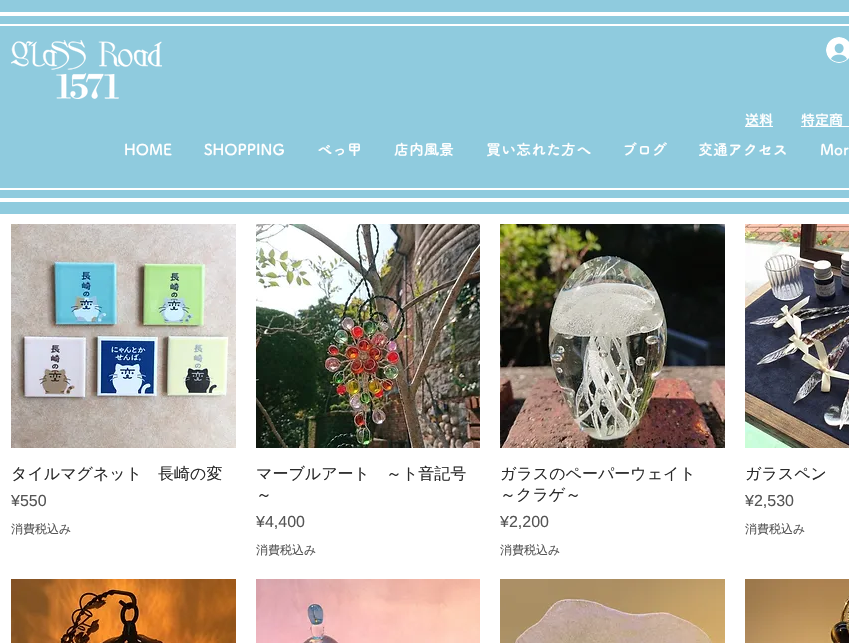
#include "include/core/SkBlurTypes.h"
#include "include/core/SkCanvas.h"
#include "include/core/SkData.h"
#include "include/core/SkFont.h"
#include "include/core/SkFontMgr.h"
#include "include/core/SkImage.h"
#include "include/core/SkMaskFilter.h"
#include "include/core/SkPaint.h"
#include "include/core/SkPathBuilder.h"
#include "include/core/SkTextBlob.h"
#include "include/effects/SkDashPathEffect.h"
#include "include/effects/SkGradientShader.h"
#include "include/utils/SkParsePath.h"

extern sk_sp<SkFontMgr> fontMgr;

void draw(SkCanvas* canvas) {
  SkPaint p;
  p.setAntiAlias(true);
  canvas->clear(SK_ColorWHITE);
  p.setColor(SkColorSetRGB(143, 203, 222));
  canvas->drawRect(SkRect::MakeLTRB(0, 0, 849, 214), p);
  p.setColor(SK_ColorWHITE);
  canvas->drawRect(SkRect::MakeLTRB(0, 12, 849, 16), p);
  canvas->drawRect(SkRect::MakeLTRB(0, 198, 849, 202), p);
  canvas->drawRect(SkRect::MakeLTRB(0, 24, 849, 26), p);
  canvas->drawRect(SkRect::MakeLTRB(0, 188, 849, 190), p);
  canvas->drawImageRect(SkImages::DeferredFromEncodedData(SkData::MakeFromFileName("images/1.png")), SkRect::MakeLTRB(11, 40, 162, 99), SkSamplingOptions());
  canvas->drawImageRect(SkImages::DeferredFromEncodedData(SkData::MakeFromFileName("images/2.png")), SkRect::MakeLTRB(826, 37, 849, 63), SkSamplingOptions());
  canvas->drawRect(SkRect::MakeLTRB(745, 126, 773, 127), p);
  canvas->drawRect(SkRect::MakeLTRB(801, 126, 849, 127), p);
  canvas->drawImageRect(SkImages::DeferredFromEncodedData(SkData::MakeFromFileName("images/3.png")), SkRect::MakeLTRB(11, 224, 236, 448), SkSamplingOptions());
  canvas->drawImageRect(SkImages::DeferredFromEncodedData(SkData::MakeFromFileName("images/4.png")), SkRect::MakeLTRB(256, 224, 480, 448), SkSamplingOptions());
  canvas->drawImageRect(SkImages::DeferredFromEncodedData(SkData::MakeFromFileName("images/5.png")), SkRect::MakeLTRB(500, 224, 725, 448), SkSamplingOptions());
  canvas->drawImageRect(SkImages::DeferredFromEncodedData(SkData::MakeFromFileName("images/6.png")), SkRect::MakeLTRB(745, 224, 849, 448), SkSamplingOptions());
  canvas->drawImageRect(SkImages::DeferredFromEncodedData(SkData::MakeFromFileName("images/7.png")), SkRect::MakeLTRB(11, 579, 236, 643), SkSamplingOptions());
  canvas->drawImageRect(SkImages::DeferredFromEncodedData(SkData::MakeFromFileName("images/8.png")), SkRect::MakeLTRB(256, 579, 480, 643), SkSamplingOptions());
  canvas->drawImageRect(SkImages::DeferredFromEncodedData(SkData::MakeFromFileName("images/9.png")), SkRect::MakeLTRB(500, 579, 725, 643), SkSamplingOptions());
  canvas->drawImageRect(SkImages::DeferredFromEncodedData(SkData::MakeFromFileName("images/10.png")), SkRect::MakeLTRB(745, 579, 849, 643), SkSamplingOptions());
  SkFont font1(fontMgr->matchFamilyStyle("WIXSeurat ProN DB", SkFontStyle(600, SkFontStyle::kNormal_Width, SkFontStyle::kUpright_Slant)), 14);
  font1.setSubpixel(true);
  canvas->drawString("送料", 745, 125, font1, p);
  canvas->drawString("特定商", 801, 125, font1, p);
  SkFont font2(fontMgr->matchFamilyStyle("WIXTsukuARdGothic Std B", SkFontStyle::Bold()), 15);
  font2.setSubpixel(true);
  canvas->drawString("HOME", 124, 155, font2, p);
  canvas->drawString("SHOPPING", 204, 155, font2, p);
  canvas->drawString("べっ甲", 317, 155, font2, p);
  canvas->drawString("店内風景", 394, 155, font2, p);
  canvas->drawString("買い忘れた方へ", 486, 155, font2, p);
  canvas->drawString("ブログ", 622, 155, font2, p);
  canvas->drawString("交通アクセス", 698, 155, font2, p);
  canvas->drawString("Mor", 820, 155, font2, p);
  SkFont font3(fontMgr->matchFamilyStyle("WenQuanYi Zen Hei", SkFontStyle(500, SkFontStyle::kNormal_Width, SkFontStyle::kUpright_Slant)), 16);
  font3.setSubpixel(true);
  p.setColor(SkColorSetRGB(42, 42, 42));
  canvas->drawString("タイルマグネット　長崎の変", 11, 479, font3, p);
  SkFont font4(fontMgr->matchFamilyStyle("Liberation Sans", SkFontStyle::Normal()), 16);
  font4.setSubpixel(true);
  p.setColor(SkColorSetRGB(85, 85, 85));
  canvas->drawString("¥550", 11, 506, font4, p);
  SkFont font5(fontMgr->matchFamilyStyle("WenQuanYi Zen Hei", SkFontStyle(500, SkFontStyle::kNormal_Width, SkFontStyle::kUpright_Slant)), 12);
  font5.setSubpixel(true);
  canvas->drawString("消費税込み", 11, 533, font5, p);
  p.setColor(SkColorSetRGB(42, 42, 42));
  canvas->drawString("マーブルアート　～ト音記号", 256, 479, font3, p);
  canvas->drawString("～", 256, 500, font3, p);
  p.setColor(SkColorSetRGB(85, 85, 85));
  canvas->drawString("¥4,400", 256, 527, font4, p);
  canvas->drawString("消費税込み", 256, 554, font5, p);
  p.setColor(SkColorSetRGB(42, 42, 42));
  canvas->drawString("ガラスのペーパーウェイト", 500, 479, font3, p);
  canvas->drawString("～クラゲ～", 500, 500, font3, p);
  p.setColor(SkColorSetRGB(85, 85, 85));
  canvas->drawString("¥2,200", 500, 527, font4, p);
  canvas->drawString("消費税込み", 500, 554, font5, p);
  p.setColor(SkColorSetRGB(42, 42, 42));
  canvas->drawString("ガラスペン", 745, 479, font3, p);
  p.setColor(SkColorSetRGB(85, 85, 85));
  canvas->drawString("¥2,530", 745, 506, font4, p);
  canvas->drawString("消費税込み", 745, 533, font5, p);
}
